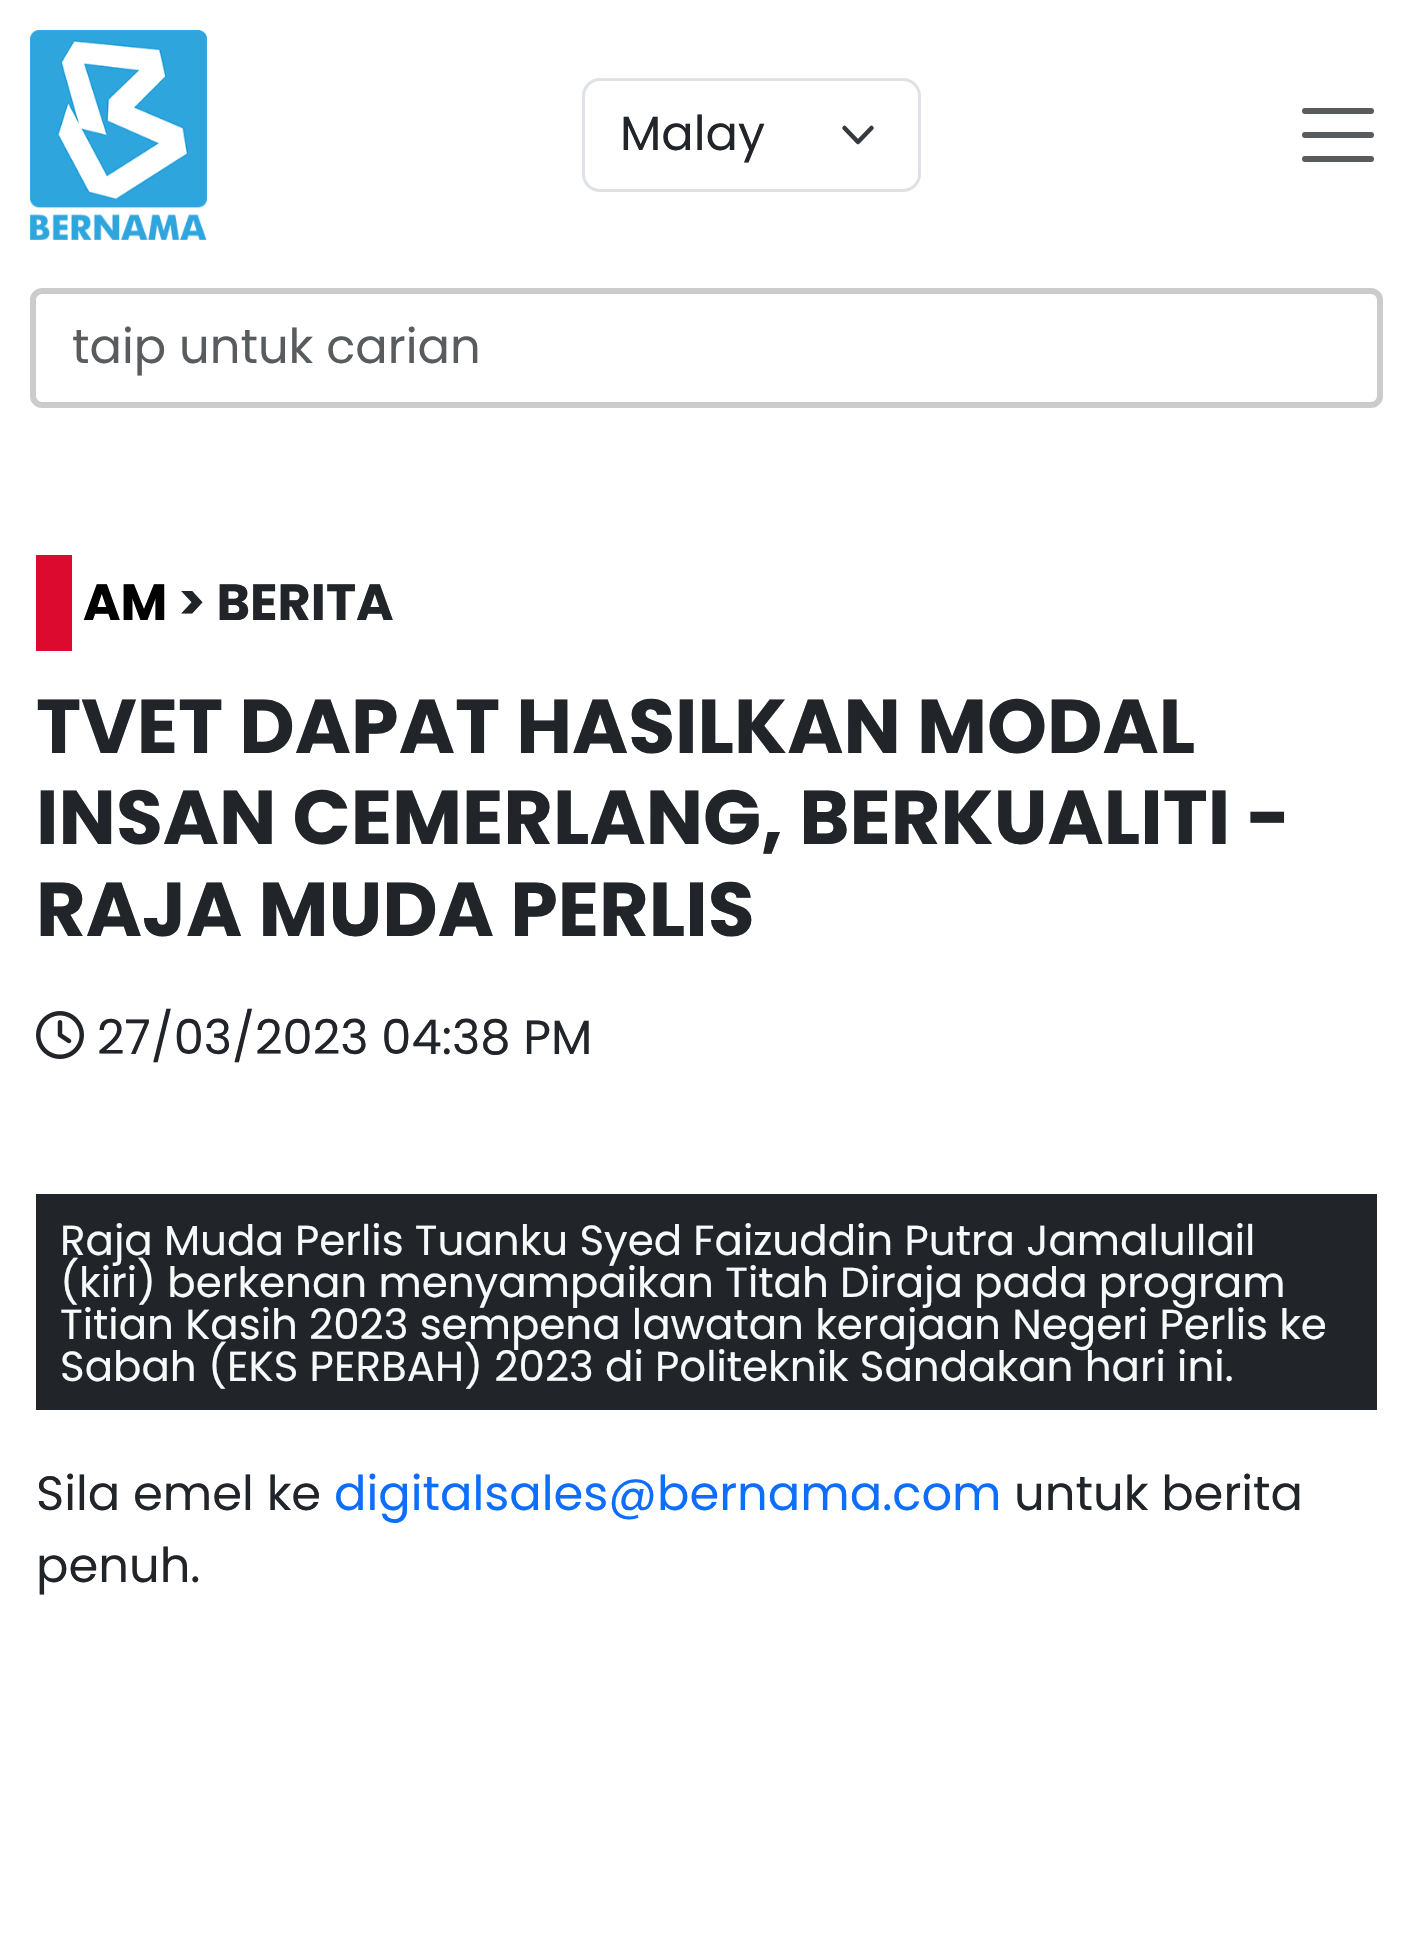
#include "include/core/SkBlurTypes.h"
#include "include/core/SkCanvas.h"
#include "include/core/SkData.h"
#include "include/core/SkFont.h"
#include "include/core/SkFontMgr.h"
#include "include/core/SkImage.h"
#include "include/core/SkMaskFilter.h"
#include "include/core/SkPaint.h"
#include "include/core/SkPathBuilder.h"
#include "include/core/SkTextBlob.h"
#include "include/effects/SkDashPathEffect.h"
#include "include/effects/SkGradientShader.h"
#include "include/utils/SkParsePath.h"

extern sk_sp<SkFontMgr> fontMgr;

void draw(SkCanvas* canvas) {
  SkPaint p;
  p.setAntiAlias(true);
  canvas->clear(SK_ColorWHITE);
  canvas->drawImageRect(SkImages::DeferredFromEncodedData(SkData::MakeFromFileName("images/1.png")), SkRect::MakeLTRB(30, 30, 207, 240), SkSamplingOptions());
  p.setStyle(SkPaint::kStroke_Style);
  p.setStrokeWidth(4.5f);
  p.setStrokeCap(SkPaint::kRound_Cap);
  p.setStrokeJoin(SkPaint::kRound_Join);
  p.setColor(SkColorSetRGB(52, 58, 64));
  canvas->drawPath(SkPathBuilder().moveTo(844.5f, 128).lineTo(858, 142).lineTo(871.5f, 128).detach(), p);
  p.setStrokeWidth(3);
  p.setStrokeCap(SkPaint::kButt_Cap);
  p.setStrokeJoin(SkPaint::kMiter_Join);
  p.setColor(SkColorSetRGB(222, 226, 230));
  canvas->drawRoundRect(SkRect::MakeLTRB(583.5f, 79.5f, 919.5f, 190.5f), 16.5f, 16.5f, p);
  p.setStrokeWidth(6);
  p.setStrokeCap(SkPaint::kRound_Cap);
  p.setColor(SkColorSetRGB(89, 92, 95));
  canvas->drawPath(SkPathBuilder().moveTo(1305, 111).lineTo(1371, 111).moveTo(1305, 135).lineTo(1371, 135).moveTo(1305, 159).lineTo(1371, 159).detach(), p);
  p.setStrokeCap(SkPaint::kButt_Cap);
  p.setColor(SkColorSetRGB(204, 204, 204));
  canvas->drawRoundRect(SkRect::MakeLTRB(33, 291, 1380, 405), 9, 9, p);
  p.setStyle(SkPaint::kFill_Style);
  p.setColor(SkColorSetRGB(221, 10, 48));
  canvas->drawRect(SkRect::MakeLTRB(36, 555, 72, 651), p);
  canvas->drawImageRect(SkImages::DeferredFromEncodedData(SkData::MakeFromFileName("images/2.png")), SkRect::MakeLTRB(36, 1011, 84, 1059), SkSamplingOptions());
  p.setColor(SkColorSetRGB(33, 37, 41));
  canvas->drawRect(SkRect::MakeLTRB(36, 1194, 1377, 1410), p);
  SkFont font1(fontMgr->matchFamilyStyle("Poppins", SkFontStyle::Normal()), 48);
  font1.setSubpixel(true);
  canvas->drawString("Malay", 620, 150, font1, p);
  p.setColor(SkColorSetRGB(89, 92, 95));
  canvas->drawString("taip untuk carian", 72, 363, font1, p);
  SkFont font2(fontMgr->matchFamilyStyle("Poppins", SkFontStyle::Bold()), 51);
  font2.setSubpixel(true);
  p.setColor(SK_ColorBLACK);
  canvas->drawString("AM", 83, 620, font2, p);
  p.setColor(SkColorSetRGB(33, 37, 41));
  canvas->drawString("> BERITA", 178, 620, font2, p);
  SkFont font3(fontMgr->matchFamilyStyle("Poppins", SkFontStyle::Bold()), 76.3f);
  font3.setSubpixel(true);
  canvas->drawString("TVET DAPAT HASILKAN MODAL", 36, 753, font3, p);
  canvas->drawString("INSAN CEMERLANG, BERKUALITI -", 36, 844, font3, p);
  canvas->drawString("RAJA MUDA PERLIS", 36, 936, font3, p);
  canvas->drawString("27/03/2023 04:38 PM", 97, 1054, font1, p);
  SkFont font4(fontMgr->matchFamilyStyle("Poppins", SkFontStyle::Normal()), 42);
  font4.setSubpixel(true);
  p.setColor(SkColorSetRGB(248, 249, 250));
  canvas->drawString("Raja Muda Perlis Tuanku Syed Faizuddin Putra Jamalullail", 60, 1255, font4, p);
  canvas->drawString("(kiri) berkenan menyampaikan Titah Diraja pada program", 60, 1297, font4, p);
  canvas->drawString("Titian Kasih 2023 sempena lawatan kerajaan Negeri Perlis ke", 60, 1339, font4, p);
  canvas->drawString("Sabah (EKS PERBAH) 2023 di Politeknik Sandakan hari ini.", 60, 1381, font4, p);
  p.setColor(SkColorSetRGB(33, 37, 41));
  canvas->drawString("Sila emel ke", 36, 1510, font1, p);
  p.setColor(SkColorSetRGB(13, 110, 253));
  canvas->drawString("digitalsales@bernama.com", 334, 1510, font1, p);
  p.setColor(SkColorSetRGB(33, 37, 41));
  canvas->drawString("untuk berita", 1014, 1510, font1, p);
  canvas->drawString("penuh.", 36, 1582, font1, p);
}
